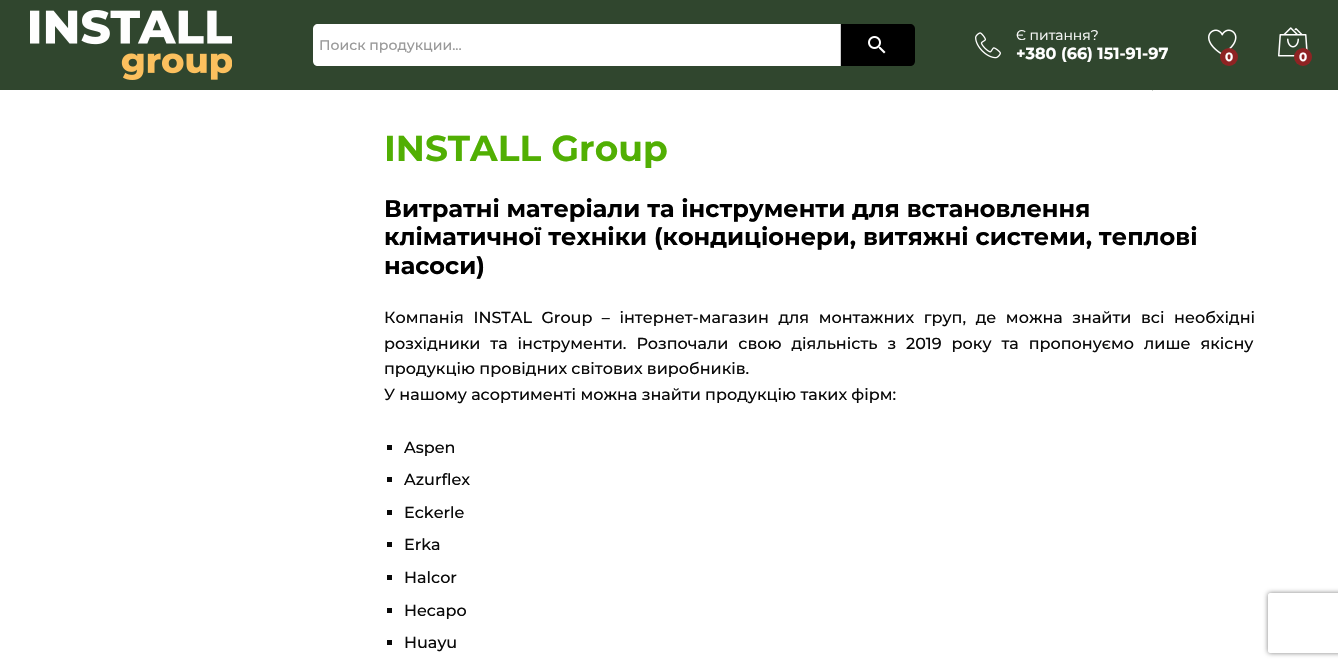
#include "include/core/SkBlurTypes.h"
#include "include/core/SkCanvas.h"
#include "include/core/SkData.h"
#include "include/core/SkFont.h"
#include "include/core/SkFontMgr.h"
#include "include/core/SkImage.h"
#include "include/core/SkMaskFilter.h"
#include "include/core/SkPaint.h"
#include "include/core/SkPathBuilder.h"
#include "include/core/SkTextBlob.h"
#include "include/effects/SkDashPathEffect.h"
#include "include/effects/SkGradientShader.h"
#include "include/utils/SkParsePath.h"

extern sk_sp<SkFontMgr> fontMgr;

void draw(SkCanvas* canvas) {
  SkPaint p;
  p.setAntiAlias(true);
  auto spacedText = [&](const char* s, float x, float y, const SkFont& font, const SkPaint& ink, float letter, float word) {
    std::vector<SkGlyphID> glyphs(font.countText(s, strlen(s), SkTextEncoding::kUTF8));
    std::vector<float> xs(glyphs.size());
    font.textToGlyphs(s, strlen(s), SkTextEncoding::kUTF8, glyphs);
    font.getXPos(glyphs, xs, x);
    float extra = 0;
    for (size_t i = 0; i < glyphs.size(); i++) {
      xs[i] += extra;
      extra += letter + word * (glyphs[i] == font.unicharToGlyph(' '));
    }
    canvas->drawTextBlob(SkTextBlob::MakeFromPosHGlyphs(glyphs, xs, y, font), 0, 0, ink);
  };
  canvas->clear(SK_ColorWHITE);
  p.setColor(SkColorSetRGB(48, 70, 46));
  canvas->drawRect(SkRect::MakeLTRB(0, 0, 1338, 90), p);
  canvas->drawImageRect(SkImages::DeferredFromEncodedData(SkData::MakeFromFileName("images/1.png")), SkRect::MakeLTRB(30, 10, 232, 80), SkSamplingOptions());
  p.setColor(SK_ColorBLACK);
  canvas->drawPath(SkPathBuilder().moveTo(840, 24).lineTo(910, 24).cubicTo(913, 24, 915, 26, 915, 29).lineTo(915, 61).cubicTo(915, 64, 913, 66, 910, 66).lineTo(840, 66).close().detach(), p);
  p.setColor(SK_ColorWHITE);
  canvas->drawPath(SkPathBuilder().moveTo(318, 24).lineTo(841, 24).lineTo(841, 66).lineTo(318, 66).cubicTo(315, 66, 313, 64, 313, 61).lineTo(313, 29).cubicTo(313, 26, 315, 24, 318, 24).close().detach(), p);
  p.setColor(SkColorSetRGB(204, 204, 204));
  canvas->drawRect(SkRect::MakeLTRB(840, 24, 841, 66), p);
  canvas->drawImageRect(SkImages::DeferredFromEncodedData(SkData::MakeFromFileName("images/2.png")), SkRect::MakeLTRB(868, 36, 886, 54), SkSamplingOptions());
  canvas->drawImageRect(SkImages::DeferredFromEncodedData(SkData::MakeFromFileName("images/3.png")), SkRect::MakeLTRB(975, 32, 1001, 59), SkSamplingOptions());
  p.setColor(SkColorSetRGB(48, 70, 46));
  canvas->drawPath(SkPathBuilder().moveTo(1152.5f, 72).lineTo(1161.5f, 81).lineTo(1152.5f, 90.5f).lineTo(1143.5f, 81).close().detach(), p);
  canvas->drawImageRect(SkImages::DeferredFromEncodedData(SkData::MakeFromFileName("images/4.png")), SkRect::MakeLTRB(1208, 29, 1237, 55), SkSamplingOptions());
  p.setColor(SkColorSetRGB(142, 35, 35));
  canvas->drawCircle(1229, 57, 9, p);
  canvas->drawImageRect(SkImages::DeferredFromEncodedData(SkData::MakeFromFileName("images/5.png")), SkRect::MakeLTRB(1278, 27, 1308, 57), SkSamplingOptions());
  canvas->drawCircle(1303, 57, 9, p);
  p.setColor(SkColorSetRGB(10, 10, 10));
  canvas->drawRect(SkRect::MakeLTRB(387, 445, 392, 450), p);
  canvas->drawRect(SkRect::MakeLTRB(387, 477, 392, 482), p);
  canvas->drawRect(SkRect::MakeLTRB(387, 510, 392, 515), p);
  canvas->drawRect(SkRect::MakeLTRB(387, 542, 392, 547), p);
  canvas->drawRect(SkRect::MakeLTRB(387, 575, 392, 580), p);
  canvas->drawRect(SkRect::MakeLTRB(387, 608, 392, 613), p);
  canvas->drawRect(SkRect::MakeLTRB(387, 640, 392, 645), p);
  canvas->save();
  canvas->clipPath(SkPathBuilder(SkPathFillType::kEvenOdd).moveTo(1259, 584).lineTo(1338, 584).lineTo(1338, 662).lineTo(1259, 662).close().moveTo(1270, 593).lineTo(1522, 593).cubicTo(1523, 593, 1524, 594, 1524, 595).lineTo(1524, 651).cubicTo(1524, 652, 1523, 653, 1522, 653).lineTo(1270, 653).cubicTo(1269, 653, 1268, 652, 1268, 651).lineTo(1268, 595).cubicTo(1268, 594, 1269, 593, 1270, 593).close().detach(), true);
  p.setColor(SkColorSetRGB(128, 128, 128));
  p.setMaskFilter(SkMaskFilter::MakeBlur(kNormal_SkBlurStyle, 2.5f));
  canvas->drawRoundRect(SkRect::MakeLTRB(1268, 593, 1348, 653), 2, 2, p);
  p.setMaskFilter(nullptr);
  canvas->restore();
  SkFont font1(fontMgr->matchFamilyStyle("Montserrat", SkFontStyle(500, SkFontStyle::kNormal_Width, SkFontStyle::kUpright_Slant)), 14);
  font1.setSubpixel(true);
  p.setColor(SkColorSetRGB(153, 153, 153));
  canvas->drawString("Поиск продукции...", 319, 50, font1, p);
  SkFont font2(fontMgr->matchFamilyStyle("Montserrat", SkFontStyle::Normal()), 14);
  font2.setSubpixel(true);
  p.setColor(SK_ColorWHITE);
  canvas->drawString("Є питання?", 1016, 40, font2, p);
  SkFont font3(fontMgr->matchFamilyStyle("Montserrat", SkFontStyle::Bold()), 16);
  font3.setSubpixel(true);
  canvas->drawString("+380 (66) 151-91-97", 1016, 59, font3, p);
  SkFont font4(fontMgr->matchFamilyStyle("Montserrat", SkFontStyle::Bold()), 12);
  font4.setSubpixel(true);
  canvas->drawString("0", 1225, 61, font4, p);
  canvas->drawString("0", 1299, 61, font4, p);
  SkFont font5(fontMgr->matchFamilyStyle("Montserrat", SkFontStyle::Bold()), 36);
  font5.setSubpixel(true);
  p.setColor(SkColorSetRGB(81, 175, 3));
  canvas->drawString("INSTALL Group", 384, 161, font5, p);
  SkFont font6(fontMgr->matchFamilyStyle("Montserrat", SkFontStyle::Bold()), 24);
  font6.setSubpixel(true);
  p.setColor(SK_ColorBLACK);
  canvas->drawString("Витратні матеріали та інструменти для встановлення", 384, 217, font6, p);
  canvas->drawString("кліматичної техніки (кондиціонери, витяжні системи, теплові", 384, 245, font6, p);
  canvas->drawString("насоси)", 384, 274, font6, p);
  SkFont font7(fontMgr->matchFamilyStyle("Montserrat", SkFontStyle(500, SkFontStyle::kNormal_Width, SkFontStyle::kUpright_Slant)), 16);
  font7.setSubpixel(true);
  p.setColor(SkColorSetRGB(10, 10, 10));
  spacedText("Компанія INSTAL Group – інтернет-магазин для монтажних груп, де можна знайти всі необхідні", 384, 323, font7, p, 0, 5.25f);
  spacedText("розхідники та інструменти. Розпочали свою діяльність з 2019 року та пропонуємо лише якісну", 384, 349, font7, p, 0, 5.6f);
  canvas->drawString("продукцію провідних світових виробників.", 384, 374, font7, p);
  canvas->drawString("У нашому асортименті можна знайти продукцію таких фірм:", 384, 400, font7, p);
  canvas->drawString("Aspen", 404, 453, font7, p);
  canvas->drawString("Azurflex", 404, 485, font7, p);
  canvas->drawString("Eckerle", 404, 518, font7, p);
  canvas->drawString("Erka", 404, 550, font7, p);
  canvas->drawString("Halcor", 404, 583, font7, p);
  canvas->drawString("Hecapo", 404, 616, font7, p);
  canvas->drawString("Huayu", 404, 648, font7, p);
}
